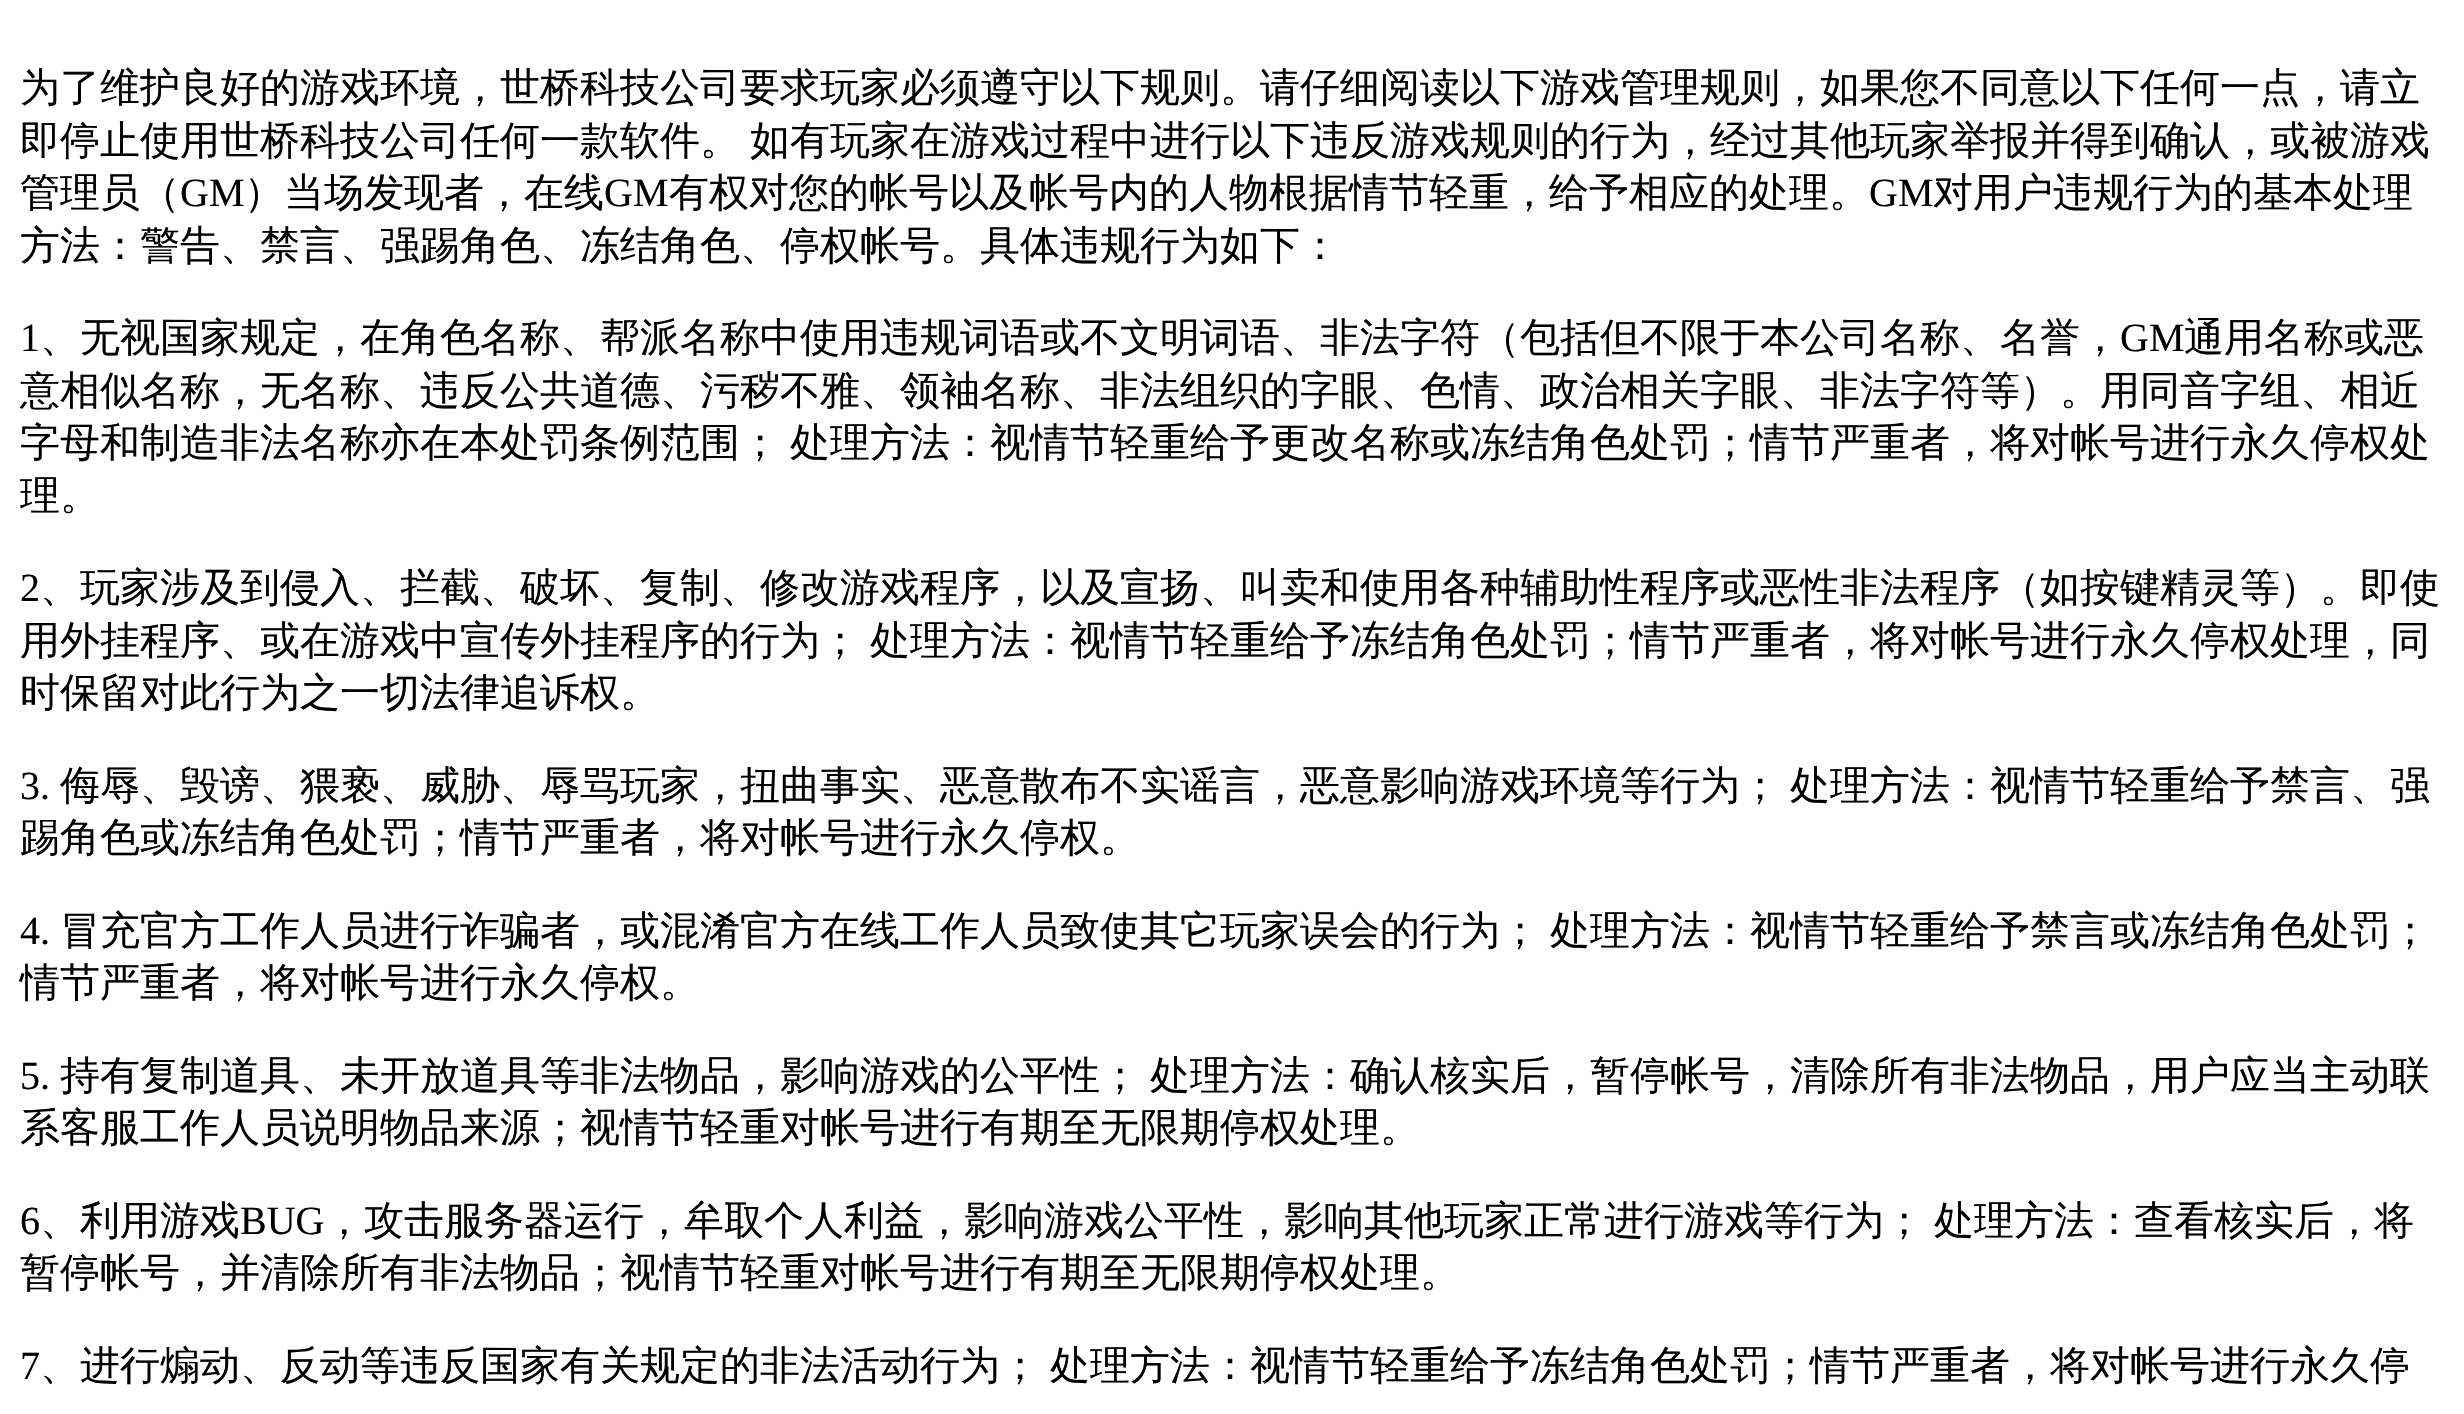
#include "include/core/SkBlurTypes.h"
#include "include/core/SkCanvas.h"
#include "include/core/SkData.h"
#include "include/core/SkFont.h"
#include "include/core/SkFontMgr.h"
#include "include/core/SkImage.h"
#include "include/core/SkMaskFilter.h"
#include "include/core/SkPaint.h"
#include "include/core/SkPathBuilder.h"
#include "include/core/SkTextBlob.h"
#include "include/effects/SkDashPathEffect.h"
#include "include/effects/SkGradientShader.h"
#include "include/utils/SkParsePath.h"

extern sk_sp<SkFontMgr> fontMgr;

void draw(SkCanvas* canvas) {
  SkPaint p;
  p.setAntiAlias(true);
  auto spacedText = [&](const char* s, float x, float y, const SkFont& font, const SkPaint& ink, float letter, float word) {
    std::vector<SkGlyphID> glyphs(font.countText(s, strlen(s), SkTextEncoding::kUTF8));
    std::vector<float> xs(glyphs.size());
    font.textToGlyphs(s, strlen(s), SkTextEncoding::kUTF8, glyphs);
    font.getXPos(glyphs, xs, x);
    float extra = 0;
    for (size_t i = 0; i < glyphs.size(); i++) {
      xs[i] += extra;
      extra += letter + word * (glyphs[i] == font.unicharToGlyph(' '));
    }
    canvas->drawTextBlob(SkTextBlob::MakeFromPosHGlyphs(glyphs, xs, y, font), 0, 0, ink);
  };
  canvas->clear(SK_ColorWHITE);
  SkFont font1(fontMgr->matchFamilyStyle("WenQuanYi Zen Hei", SkFontStyle(500, SkFontStyle::kNormal_Width, SkFontStyle::kUpright_Slant)), 40);
  font1.setSubpixel(true);
  p.setColor(SK_ColorBLACK);
  canvas->drawString("为了维护良好的游戏环境，世桥科技公司要求玩家必须遵守以下规则。请仔细阅读以下游戏管理规则，如果您不同意以下任何一点，请立", 20, 101, font1, p);
  spacedText("即停止使用世桥科技公司任何一款软件。 如有玩家在游戏过程中进行以下违反游戏规则的行为，经过其他玩家举报并得到确认，或被游戏", 20, 154, font1, p, 0, -2);
  canvas->drawString("管理员（", 20, 206, font1, p);
  SkFont font2(fontMgr->matchFamilyStyle("Liberation Serif", SkFontStyle::Normal()), 40);
  font2.setSubpixel(true);
  canvas->drawString("GM", 180, 206, font2, p);
  canvas->drawString("）当场发现者，在线", 244, 206, font1, p);
  canvas->drawString("GM", 604, 206, font2, p);
  canvas->drawString("有权对您的帐号以及帐号内的人物根据情节轻重，给予相应的处理。", 669, 206, font1, p);
  canvas->drawString("GM", 1869, 206, font2, p);
  canvas->drawString("对用户违规行为的基本处理", 1933, 206, font1, p);
  canvas->drawString("方法：警告、禁言、强踢角色、冻结角色、停权帐号。具体违规行为如下：", 20, 259, font1, p);
  canvas->drawString("1", 20, 351, font2, p);
  canvas->drawString("、无视国家规定，在角色名称、帮派名称中使用违规词语或不文明词语、非法字符（包括但不限于本公司名称、名誉，", 40, 351, font1, p);
  canvas->drawString("GM", 2120, 351, font2, p);
  canvas->drawString("通用名称或恶", 2184, 351, font1, p);
  canvas->drawString("意相似名称，无名称、违反公共道德、污秽不雅、领袖名称、非法组织的字眼、色情、政治相关字眼、非法字符等）。用同音字组、相近", 20, 404, font1, p);
  canvas->drawString("字母和制造非法名称亦在本处罚条例范围；", 20, 456, font1, p);
  canvas->drawString("处理方法：视情节轻重给予更改名称或冻结角色处罚；情节严重者，将对帐号进行永久停权处", 790, 456, font1, p);
  canvas->drawString("理。", 20, 509, font1, p);
  canvas->drawString("2", 20, 601, font2, p);
  canvas->drawString("、玩家涉及到侵入、拦截、破坏、复制、修改游戏程序，以及宣扬、叫卖和使用各种辅助性程序或恶性非法程序（如按键精灵等）。即使", 40, 601, font1, p);
  canvas->drawString("用外挂程序、或在游戏中宣传外挂程序的行为；", 20, 654, font1, p);
  canvas->drawString("处理方法：视情节轻重给予冻结角色处罚；情节严重者，将对帐号进行永久停权处理，同", 870, 654, font1, p);
  canvas->drawString("时保留对此行为之一切法律追诉权。", 20, 706, font1, p);
  canvas->drawString("3.", 20, 799, font2, p);
  canvas->drawString("侮辱、毁谤、猥亵、威胁、辱骂玩家，扭曲事实、恶意散布不实谣言，恶意影响游戏环境等行为；", 60, 799, font1, p);
  canvas->drawString("处理方法：视情节轻重给予禁言、强", 1790, 799, font1, p);
  canvas->drawString("踢角色或冻结角色处罚；情节严重者，将对帐号进行永久停权。", 20, 851, font1, p);
  canvas->drawString("4.", 20, 944, font2, p);
  canvas->drawString("冒充官方工作人员进行诈骗者，或混淆官方在线工作人员致使其它玩家误会的行为；", 60, 944, font1, p);
  canvas->drawString("处理方法：视情节轻重给予禁言或冻结角色处罚；", 1550, 944, font1, p);
  canvas->drawString("情节严重者，将对帐号进行永久停权。", 20, 996, font1, p);
  canvas->drawString("5.", 20, 1089, font2, p);
  canvas->drawString("持有复制道具、未开放道具等非法物品，影响游戏的公平性；", 60, 1089, font1, p);
  canvas->drawString("处理方法：确认核实后，暂停帐号，清除所有非法物品，用户应当主动联", 1150, 1089, font1, p);
  canvas->drawString("系客服工作人员说明物品来源；视情节轻重对帐号进行有期至无限期停权处理。", 20, 1141, font1, p);
  canvas->drawString("6", 20, 1234, font2, p);
  canvas->drawString("、利用游戏", 40, 1234, font1, p);
  canvas->drawString("BUG", 240, 1234, font2, p);
  canvas->drawString("，攻击服务器运行，牟取个人利益，影响游戏公平性，影响其他玩家正常进行游戏等行为；", 324, 1234, font1, p);
  canvas->drawString("处理方法：查看核实后，将", 1934, 1234, font1, p);
  canvas->drawString("暂停帐号，并清除所有非法物品；视情节轻重对帐号进行有期至无限期停权处理。", 20, 1286, font1, p);
  canvas->drawString("7", 20, 1379, font2, p);
  canvas->drawString("、进行煽动、反动等违反国家有关规定的非法活动行为；", 40, 1379, font1, p);
  canvas->drawString("处理方法：视情节轻重给予冻结角色处罚；情节严重者，将对帐号进行永久停", 1050, 1379, font1, p);
}
